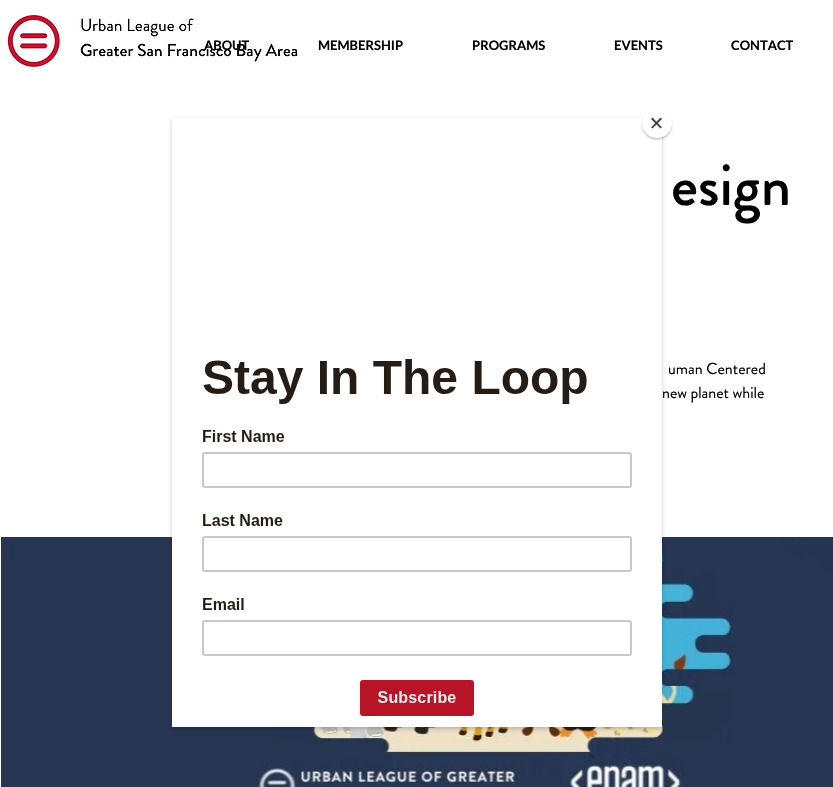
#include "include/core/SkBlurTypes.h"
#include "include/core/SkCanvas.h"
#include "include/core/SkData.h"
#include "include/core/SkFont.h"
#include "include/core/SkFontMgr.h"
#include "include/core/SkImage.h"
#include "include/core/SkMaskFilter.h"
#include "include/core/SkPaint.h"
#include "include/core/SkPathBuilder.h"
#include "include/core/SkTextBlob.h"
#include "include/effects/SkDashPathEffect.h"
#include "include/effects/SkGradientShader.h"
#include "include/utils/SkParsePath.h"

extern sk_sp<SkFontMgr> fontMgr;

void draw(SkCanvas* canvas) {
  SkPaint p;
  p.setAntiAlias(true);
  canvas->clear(SK_ColorWHITE);
  canvas->drawImageRect(SkImages::DeferredFromEncodedData(SkData::MakeFromFileName("images/1.png")), SkRect::MakeLTRB(7, 15, 298, 67), SkSamplingOptions());
  canvas->drawImageRect(SkImages::DeferredFromEncodedData(SkData::MakeFromFileName("images/2.png")), SkRect::MakeLTRB(1, 537, 833, 787), SkSamplingOptions());
  p.setColor(SkColorSetARGB(51, 0, 0, 0));
  p.setMaskFilter(SkMaskFilter::MakeBlur(kNormal_SkBlurStyle, 1));
  canvas->drawRoundRect(SkRect::MakeLTRB(642, 110, 672, 140), 15, 15, p);
  p.setMaskFilter(nullptr);
  canvas->save();
  canvas->clipPath(SkPathBuilder(SkPathFillType::kEvenOdd).moveTo(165, 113).lineTo(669, 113).lineTo(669, 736).lineTo(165, 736).close().moveTo(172, 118).lineTo(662, 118).lineTo(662, 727).lineTo(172, 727).close().detach(), true);
  p.setMaskFilter(SkMaskFilter::MakeBlur(kNormal_SkBlurStyle, 2));
  canvas->drawRect(SkRect::MakeLTRB(172, 120, 662, 729), p);
  p.setMaskFilter(nullptr);
  canvas->restore();
  p.setColor(SK_ColorWHITE);
  canvas->drawCircle(657, 123, 15, p);
  p.setColor(SkColorSetRGB(65, 65, 65));
  canvas->drawPath(SkPathBuilder().moveTo(660.5f, 117.5f).lineTo(662, 119).lineTo(652.5f, 128.5f).lineTo(651, 127.5f).close().detach(), p);
  canvas->drawPath(SkPathBuilder().moveTo(651, 119).lineTo(652.5f, 117.5f).lineTo(662, 127.5f).lineTo(660.5f, 128.5f).close().detach(), p);
  canvas->drawImageRect(SkImages::DeferredFromEncodedData(SkData::MakeFromFileName("images/3.png")), SkRect::MakeLTRB(172, 162, 662, 727), SkSamplingOptions());
  SkFont font1(fontMgr->matchFamilyStyle("Lato", SkFontStyle::Bold()), 13);
  font1.setSubpixel(true);
  p.setColor(SK_ColorBLACK);
  canvas->drawString("ABOUT", 204, 50, font1, p);
  canvas->drawString("MEMBERSHIP", 318, 50, font1, p);
  canvas->drawString("PROGRAMS", 472, 50, font1, p);
  canvas->drawString("EVENTS", 614, 50, font1, p);
  canvas->drawString("CONTACT", 731, 50, font1, p);
  SkFont font2(fontMgr->matchFamilyStyle("Brandon Grotesque", SkFontStyle(500, SkFontStyle::kNormal_Width, SkFontStyle::kUpright_Slant)), 60);
  font2.setSubpixel(true);
  canvas->drawString("esign", 671, 205, font2, p);
  SkFont font3(fontMgr->matchFamilyStyle("Brandon Grotesque", SkFontStyle::Normal()), 16);
  font3.setSubpixel(true);
  canvas->drawString("uman Centered", 668, 374, font3, p);
  canvas->drawString("new planet while", 662, 398, font3, p);
}
